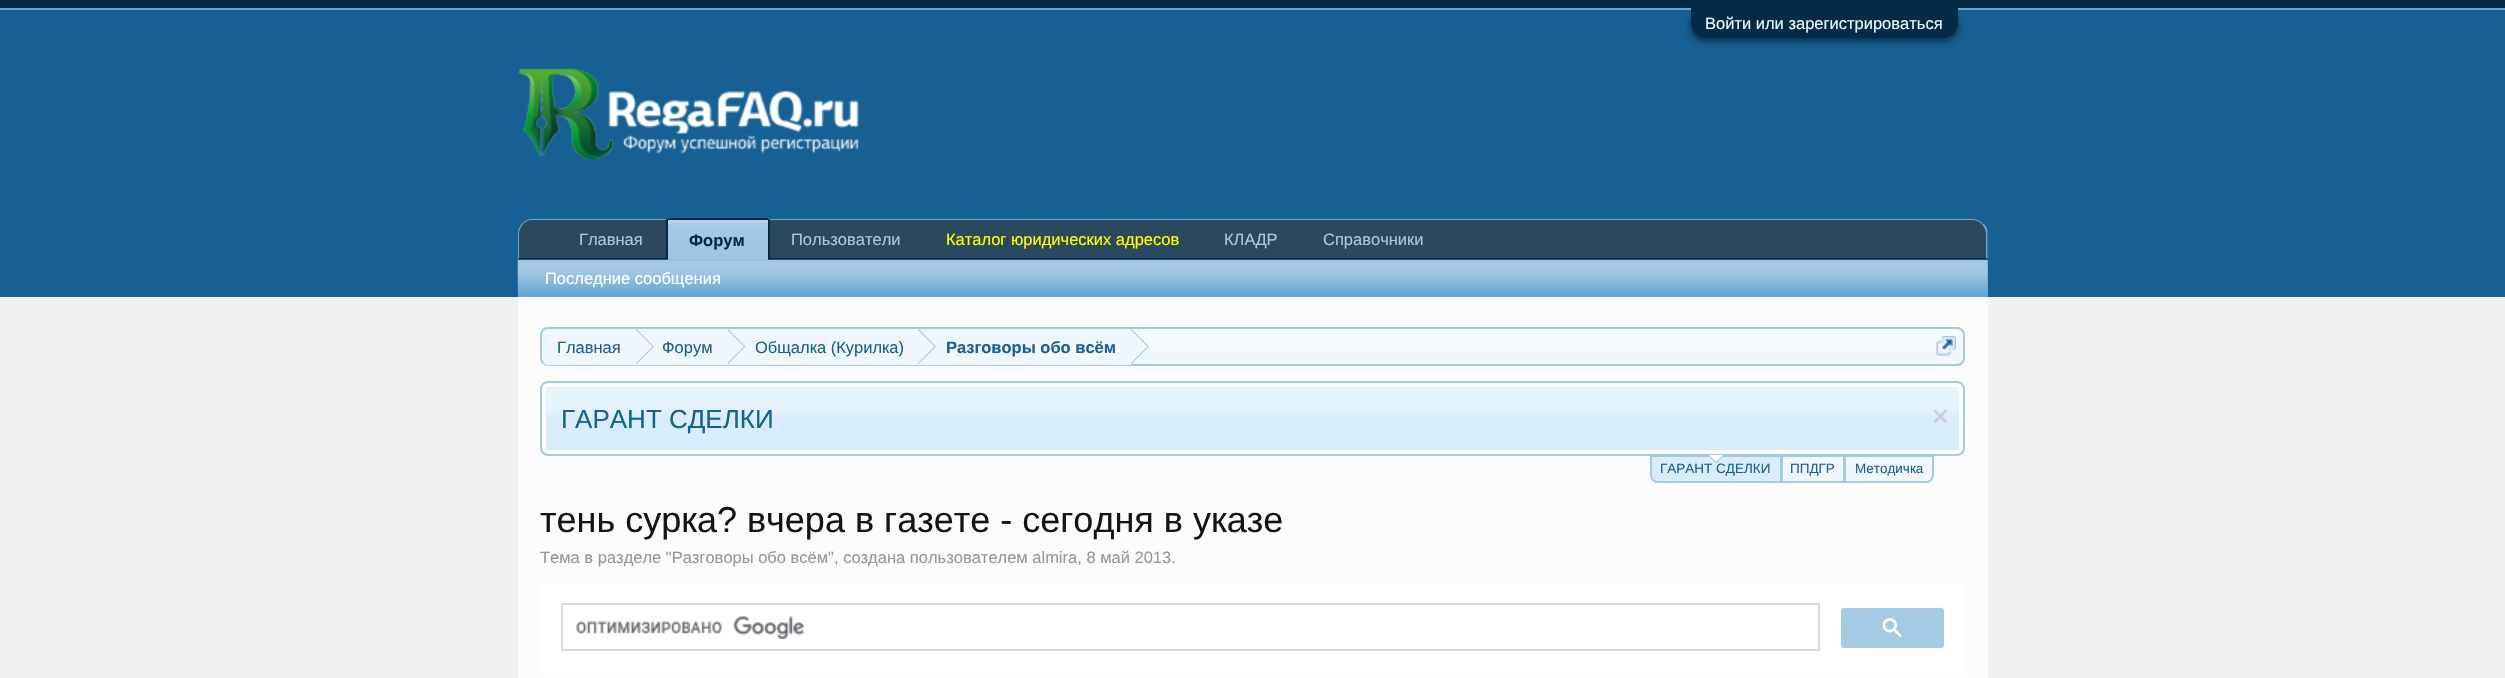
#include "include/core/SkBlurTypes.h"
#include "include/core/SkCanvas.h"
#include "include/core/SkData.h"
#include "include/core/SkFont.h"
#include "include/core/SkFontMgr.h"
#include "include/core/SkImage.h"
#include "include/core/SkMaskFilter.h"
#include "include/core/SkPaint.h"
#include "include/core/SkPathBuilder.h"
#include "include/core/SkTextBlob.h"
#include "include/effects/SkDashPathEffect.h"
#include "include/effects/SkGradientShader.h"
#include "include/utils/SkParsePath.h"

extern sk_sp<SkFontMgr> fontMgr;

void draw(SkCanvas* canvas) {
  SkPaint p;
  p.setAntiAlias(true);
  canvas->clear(SkColorSetRGB(240, 240, 240));
  p.setColor(SkColorSetRGB(3, 42, 70));
  canvas->drawRect(SkRect::MakeLTRB(0, 0, 2505, 8), p);
  p.setColor(SkColorSetRGB(101, 165, 209));
  canvas->drawRect(SkRect::MakeLTRB(0, 8, 2505, 10), p);
  p.setColor(SkColorSetRGB(23, 96, 147));
  canvas->drawRect(SkRect::MakeLTRB(0, 10, 2505, 297), p);
  p.setColor(SkColorSetRGB(3, 42, 70));
  p.setMaskFilter(SkMaskFilter::MakeBlur(kNormal_SkBlurStyle, 4));
  canvas->drawRoundRect(SkRect::MakeLTRB(1691, 11, 1958, 41), 15, 15, p);
  p.setMaskFilter(nullptr);
  canvas->drawPath(SkPathBuilder().moveTo(1691, 8).lineTo(1958, 8).lineTo(1958, 23).cubicTo(1958, 31.5f, 1951.5f, 38, 1943, 38).lineTo(1706, 38).cubicTo(1697.5f, 38, 1691, 31.5f, 1691, 23).close().detach(), p);
  canvas->drawImageRect(SkImages::DeferredFromEncodedData(SkData::MakeFromFileName("images/1.png")), SkRect::MakeLTRB(518, 68, 859, 160), SkSamplingOptions());
  p.setColor(SkColorSetRGB(43, 72, 92));
  canvas->drawPath(SkPathBuilder().moveTo(533, 219).lineTo(1973, 219).cubicTo(1981.5f, 219, 1988, 225.5f, 1988, 234).lineTo(1988, 260).lineTo(518, 260).lineTo(518, 234).cubicTo(518, 225.5f, 524.5f, 219, 533, 219).close().detach(), p);
  p.setColor(SkColorSetRGB(101, 165, 209));
  canvas->drawPath(SkPathBuilder().moveTo(532, 219).cubicTo(528, 219, 524, 221, 522, 224).lineTo(523, 224).cubicTo(525, 222, 528, 220, 532, 220).lineTo(1972, 220).cubicTo(1976, 220, 1980, 222, 1982, 224).lineTo(1983, 223).cubicTo(1980, 221, 1976, 219, 1972, 219).close().detach(), p);
  canvas->drawPath(SkPathBuilder().moveTo(1983, 223.5f).cubicTo(1985.5f, 225, 1987, 227.5f, 1987.5f, 230.5f).lineTo(1987.5f, 259.5f).lineTo(1986, 258).lineTo(1986, 234).cubicTo(1986, 230.5f, 1984.5f, 227, 1982, 224.5f).close().detach(), p);
  p.setColor(SkColorSetRGB(3, 42, 70));
  canvas->drawPath(SkPathBuilder().moveTo(1988, 260).lineTo(518, 260).lineTo(519, 258).lineTo(1986, 258).close().detach(), p);
  p.setColor(SkColorSetRGB(101, 165, 209));
  canvas->drawPath(SkPathBuilder().moveTo(522, 223.5f).cubicTo(519.5f, 226, 518, 230, 518, 234).lineTo(518, 259).lineTo(519, 258).lineTo(519, 234).cubicTo(519, 230.5f, 520.5f, 227, 523, 224.5f).close().detach(), p);
  canvas->drawPath(SkPathBuilder().moveTo(669, 218).lineTo(767, 218).cubicTo(768.5f, 218, 770, 219.5f, 770, 221).lineTo(770, 260).lineTo(666, 260).lineTo(666, 221).cubicTo(666, 219.5f, 667.5f, 218, 669, 218).close().detach(), p);
  canvas->drawImageRect(SkImages::DeferredFromEncodedData(SkData::MakeFromFileName("images/2.png")), SkRect::MakeLTRB(668, 220, 768, 260), SkSamplingOptions());
  p.setColor(SkColorSetRGB(3, 42, 70));
  canvas->drawRect(SkRect::MakeLTRB(668, 218, 768, 220), p);
  canvas->drawRect(SkRect::MakeLTRB(768, 219, 770, 260), p);
  canvas->drawRect(SkRect::MakeLTRB(666, 219, 668, 260), p);
  p.setColor(SkColorSetRGB(101, 165, 209));
  canvas->drawRect(SkRect::MakeLTRB(518, 260, 1988, 297), p);
  canvas->drawImageRect(SkImages::DeferredFromEncodedData(SkData::MakeFromFileName("images/3.png")), SkRect::MakeLTRB(517, 259, 1988, 295), SkSamplingOptions());
  p.setColor(SkColorSetRGB(252, 252, 255));
  canvas->drawRect(SkRect::MakeLTRB(518, 297, 1988, 678), p);
  p.setColor(SkColorSetRGB(240, 247, 252));
  canvas->drawRoundRect(SkRect::MakeLTRB(540, 327, 1965, 366), 8, 8, p);
  canvas->drawImageRect(SkImages::DeferredFromEncodedData(SkData::MakeFromFileName("images/4.png")), SkRect::MakeLTRB(540, 329, 1965, 352), SkSamplingOptions());
  p.setStyle(SkPaint::kStroke_Style);
  p.setStrokeWidth(2);
  p.setColor(SkColorSetRGB(165, 202, 228));
  canvas->drawRoundRect(SkRect::MakeLTRB(541, 328, 1964, 365), 7, 7, p);
  canvas->save();
  canvas->clipPath(SkPathBuilder().moveTo(548, 329).lineTo(1958, 329).cubicTo(1961.5f, 329, 1964, 331.5f, 1964, 335).lineTo(1964, 359).cubicTo(1964, 362.5f, 1961.5f, 365, 1958, 365).lineTo(548, 365).cubicTo(544.5f, 365, 542, 362.5f, 542, 359).lineTo(542, 335).cubicTo(542, 331.5f, 544.5f, 329, 548, 329).close().detach(), true);
  p.setStyle(SkPaint::kFill_Style);
  p.setColor(SkColorSetRGB(240, 247, 252));
  canvas->drawPath(SkPathBuilder().moveTo(550, 329).lineTo(636, 329).lineTo(636, 366).lineTo(550, 366).cubicTo(545.5f, 366, 542, 362.5f, 542, 358).lineTo(542, 337).cubicTo(542, 332.5f, 545.5f, 329, 550, 329).close().detach(), p);
  canvas->restore();
  canvas->drawRect(SkRect::MakeLTRB(636, 329, 1131, 365), p);
  p.setColor(SkColorSetRGB(165, 202, 228));
  canvas->drawPath(SkPathBuilder().moveTo(636, 364.5f).lineTo(636, 328.5f).lineTo(654, 346.5f).close().detach(), p);
  p.setColor(SkColorSetRGB(240, 247, 252));
  canvas->drawPath(SkPathBuilder().moveTo(634.5f, 364.5f).lineTo(634.5f, 328.5f).lineTo(652.5f, 346.5f).close().detach(), p);
  p.setColor(SkColorSetRGB(165, 202, 228));
  canvas->drawPath(SkPathBuilder().moveTo(727.5f, 364.5f).lineTo(727.5f, 328.5f).lineTo(745.5f, 346.5f).close().detach(), p);
  p.setColor(SkColorSetRGB(240, 247, 252));
  canvas->drawPath(SkPathBuilder().moveTo(726, 364.5f).lineTo(726, 328.5f).lineTo(744, 346.5f).close().detach(), p);
  p.setColor(SkColorSetRGB(165, 202, 228));
  canvas->drawPath(SkPathBuilder().moveTo(918, 364.5f).lineTo(918, 328.5f).lineTo(936, 346.5f).close().detach(), p);
  p.setColor(SkColorSetRGB(240, 247, 252));
  canvas->drawPath(SkPathBuilder().moveTo(916.5f, 364.5f).lineTo(916.5f, 328.5f).lineTo(934.5f, 346.5f).close().detach(), p);
  p.setColor(SkColorSetRGB(165, 202, 228));
  canvas->drawPath(SkPathBuilder().moveTo(1131, 364.5f).lineTo(1131, 328.5f).lineTo(1149, 346.5f).close().detach(), p);
  p.setColor(SkColorSetRGB(240, 247, 252));
  canvas->drawPath(SkPathBuilder().moveTo(1129.5f, 364.5f).lineTo(1129.5f, 328.5f).lineTo(1147.5f, 346.5f).close().detach(), p);
  canvas->drawImageRect(SkImages::DeferredFromEncodedData(SkData::MakeFromFileName("images/5.png")), SkRect::MakeLTRB(1936, 336, 1956, 356), SkSamplingOptions());
  p.setStyle(SkPaint::kStroke_Style);
  p.setColor(SkColorSetRGB(165, 202, 228));
  canvas->drawRoundRect(SkRect::MakeLTRB(541, 382, 1964, 455), 7, 7, p);
  p.setStyle(SkPaint::kFill_Style);
  p.setColor(SkColorSetRGB(215, 237, 252));
  canvas->drawRect(SkRect::MakeLTRB(546, 387, 1959, 450), p);
  canvas->drawImageRect(SkImages::DeferredFromEncodedData(SkData::MakeFromFileName("images/6.png")), SkRect::MakeLTRB(546, 387, 1959, 417), SkSamplingOptions());
  canvas->drawImageRect(SkImages::DeferredFromEncodedData(SkData::MakeFromFileName("images/7.png")), SkRect::MakeLTRB(1932, 408, 1949, 425), SkSamplingOptions());
  canvas->drawPath(SkPathBuilder().moveTo(1651, 456).lineTo(1781, 456).lineTo(1781, 482).lineTo(1658, 482).cubicTo(1654, 482, 1651, 479, 1651, 475).close().detach(), p);
  p.setStyle(SkPaint::kStroke_Style);
  p.setColor(SkColorSetRGB(165, 202, 228));
  canvas->drawPath(SkPathBuilder().moveTo(1651, 456).lineTo(1781, 456).lineTo(1781, 482).lineTo(1658, 482).cubicTo(1654, 482, 1651, 479, 1651, 475).close().detach(), p);
  p.setStyle(SkPaint::kFill_Style);
  p.setColor(SkColorSetRGB(240, 247, 252));
  canvas->drawRect(SkRect::MakeLTRB(1782, 456, 1844, 482), p);
  p.setStyle(SkPaint::kStroke_Style);
  p.setColor(SkColorSetRGB(165, 202, 228));
  canvas->drawRect(SkRect::MakeLTRB(1782, 456, 1844, 482), p);
  p.setStyle(SkPaint::kFill_Style);
  p.setColor(SkColorSetRGB(240, 247, 252));
  canvas->drawPath(SkPathBuilder().moveTo(1845, 456).lineTo(1933, 456).lineTo(1933, 475).cubicTo(1933, 479, 1930, 482, 1926, 482).lineTo(1845, 482).close().detach(), p);
  p.setStyle(SkPaint::kStroke_Style);
  p.setColor(SkColorSetRGB(165, 202, 228));
  canvas->drawPath(SkPathBuilder().moveTo(1845, 456).lineTo(1933, 456).lineTo(1933, 475).cubicTo(1933, 479, 1930, 482, 1926, 482).lineTo(1845, 482).close().detach(), p);
  p.setStyle(SkPaint::kFill_Style);
  p.setColor(SK_ColorWHITE);
  canvas->drawRect(SkRect::MakeLTRB(542, 584, 1963, 676), p);
  p.setStyle(SkPaint::kStroke_Style);
  p.setColor(SkColorSetRGB(217, 217, 217));
  canvas->drawRect(SkRect::MakeLTRB(562, 604, 1819, 650), p);
  canvas->drawImageRect(SkImages::DeferredFromEncodedData(SkData::MakeFromFileName("images/8.png")), SkRect::MakeLTRB(576, 616, 804, 639), SkSamplingOptions());
  p.setStyle(SkPaint::kFill_Style);
  p.setColor(SkColorSetRGB(165, 202, 228));
  canvas->drawRoundRect(SkRect::MakeLTRB(1842, 609, 1943, 647), 2, 2, p);
  p.setStyle(SkPaint::kStroke_Style);
  canvas->drawRoundRect(SkRect::MakeLTRB(1842, 609, 1943, 647), 2, 2, p);
  canvas->drawImageRect(SkImages::DeferredFromEncodedData(SkData::MakeFromFileName("images/9.png")), SkRect::MakeLTRB(1883, 618, 1902, 638), SkSamplingOptions());
  SkFont font1(fontMgr->matchFamilyStyle("Liberation Sans", SkFontStyle::Normal()), 16.5f);
  font1.setSubpixel(true);
  p.setStyle(SkPaint::kFill_Style);
  p.setColor(SkColorSetRGB(240, 247, 252));
  canvas->drawString("Войти или зарегистрироваться", 1705, 29, font1, p);
  p.setColor(SkColorSetRGB(165, 202, 228));
  canvas->drawString("Главная", 579, 245, font1, p);
  canvas->drawString("Пользователи", 791, 245, font1, p);
  p.setColor(SkColorSetRGB(255, 255, 0));
  canvas->drawString("Каталог юридических адресов", 946, 245, font1, p);
  p.setColor(SkColorSetRGB(165, 202, 228));
  canvas->drawString("КЛАДР", 1224, 245, font1, p);
  canvas->drawString("Справочники", 1323, 245, font1, p);
  SkFont font2(fontMgr->matchFamilyStyle("Liberation Sans", SkFontStyle::Bold()), 16.5f);
  font2.setSubpixel(true);
  p.setColor(SkColorSetRGB(3, 42, 70));
  canvas->drawString("Форум", 689, 246, font2, p);
  p.setColor(SK_ColorWHITE);
  canvas->drawString("Последние сообщения", 545, 284, font1, p);
  p.setColor(SkColorSetRGB(23, 96, 147));
  canvas->drawString("Главная", 557, 353, font1, p);
  canvas->drawString("Форум", 662, 353, font1, p);
  canvas->drawString("Общалка (Курилка)", 755, 353, font1, p);
  canvas->drawString("Разговоры обо всём", 946, 353, font2, p);
  SkFont font3(fontMgr->matchFamilyStyle("Liberation Sans", SkFontStyle::Normal()), 26);
  font3.setSubpixel(true);
  canvas->drawString("ГАРАНТ СДЕЛКИ", 561, 428, font3, p);
  SkFont font4(fontMgr->matchFamilyStyle("Liberation Sans", SkFontStyle::Normal()), 13.5f);
  font4.setSubpixel(true);
  canvas->drawString("ГАРАНТ СДЕЛКИ", 1660, 473, font4, p);
  p.setColor(SkColorSetRGB(165, 202, 228));
  canvas->drawPath(SkPathBuilder().moveTo(1708.5f, 456).lineTo(1723.5f, 456).lineTo(1716, 463.5f).close().detach(), p);
  canvas->save();
  canvas->clipRect(SkRect::MakeLTRB(572, 455, 1934, 483));
  p.setColor(SkColorSetRGB(252, 252, 255));
  canvas->drawPath(SkPathBuilder().moveTo(1708.5f, 454.5f).lineTo(1723.5f, 454.5f).lineTo(1716, 462).close().detach(), p);
  canvas->restore();
  p.setColor(SkColorSetRGB(23, 96, 147));
  canvas->drawString("ППДГР", 1790, 473, font4, p);
  canvas->drawString("Методичка", 1855, 473, font4, p);
  SkFont font5(fontMgr->matchFamilyStyle("Liberation Sans", SkFontStyle::Normal()), 36);
  font5.setSubpixel(true);
  p.setColor(SkColorSetRGB(20, 20, 20));
  canvas->drawString("тень сурка? вчера в газете - сегодня в указе", 540, 532, font5, p);
  p.setColor(SkColorSetRGB(150, 150, 150));
  canvas->drawString("Тема в разделе \"Разговоры обо всём\", создана пользователем almira, 8 май 2013.", 540, 563, font1, p);
}
